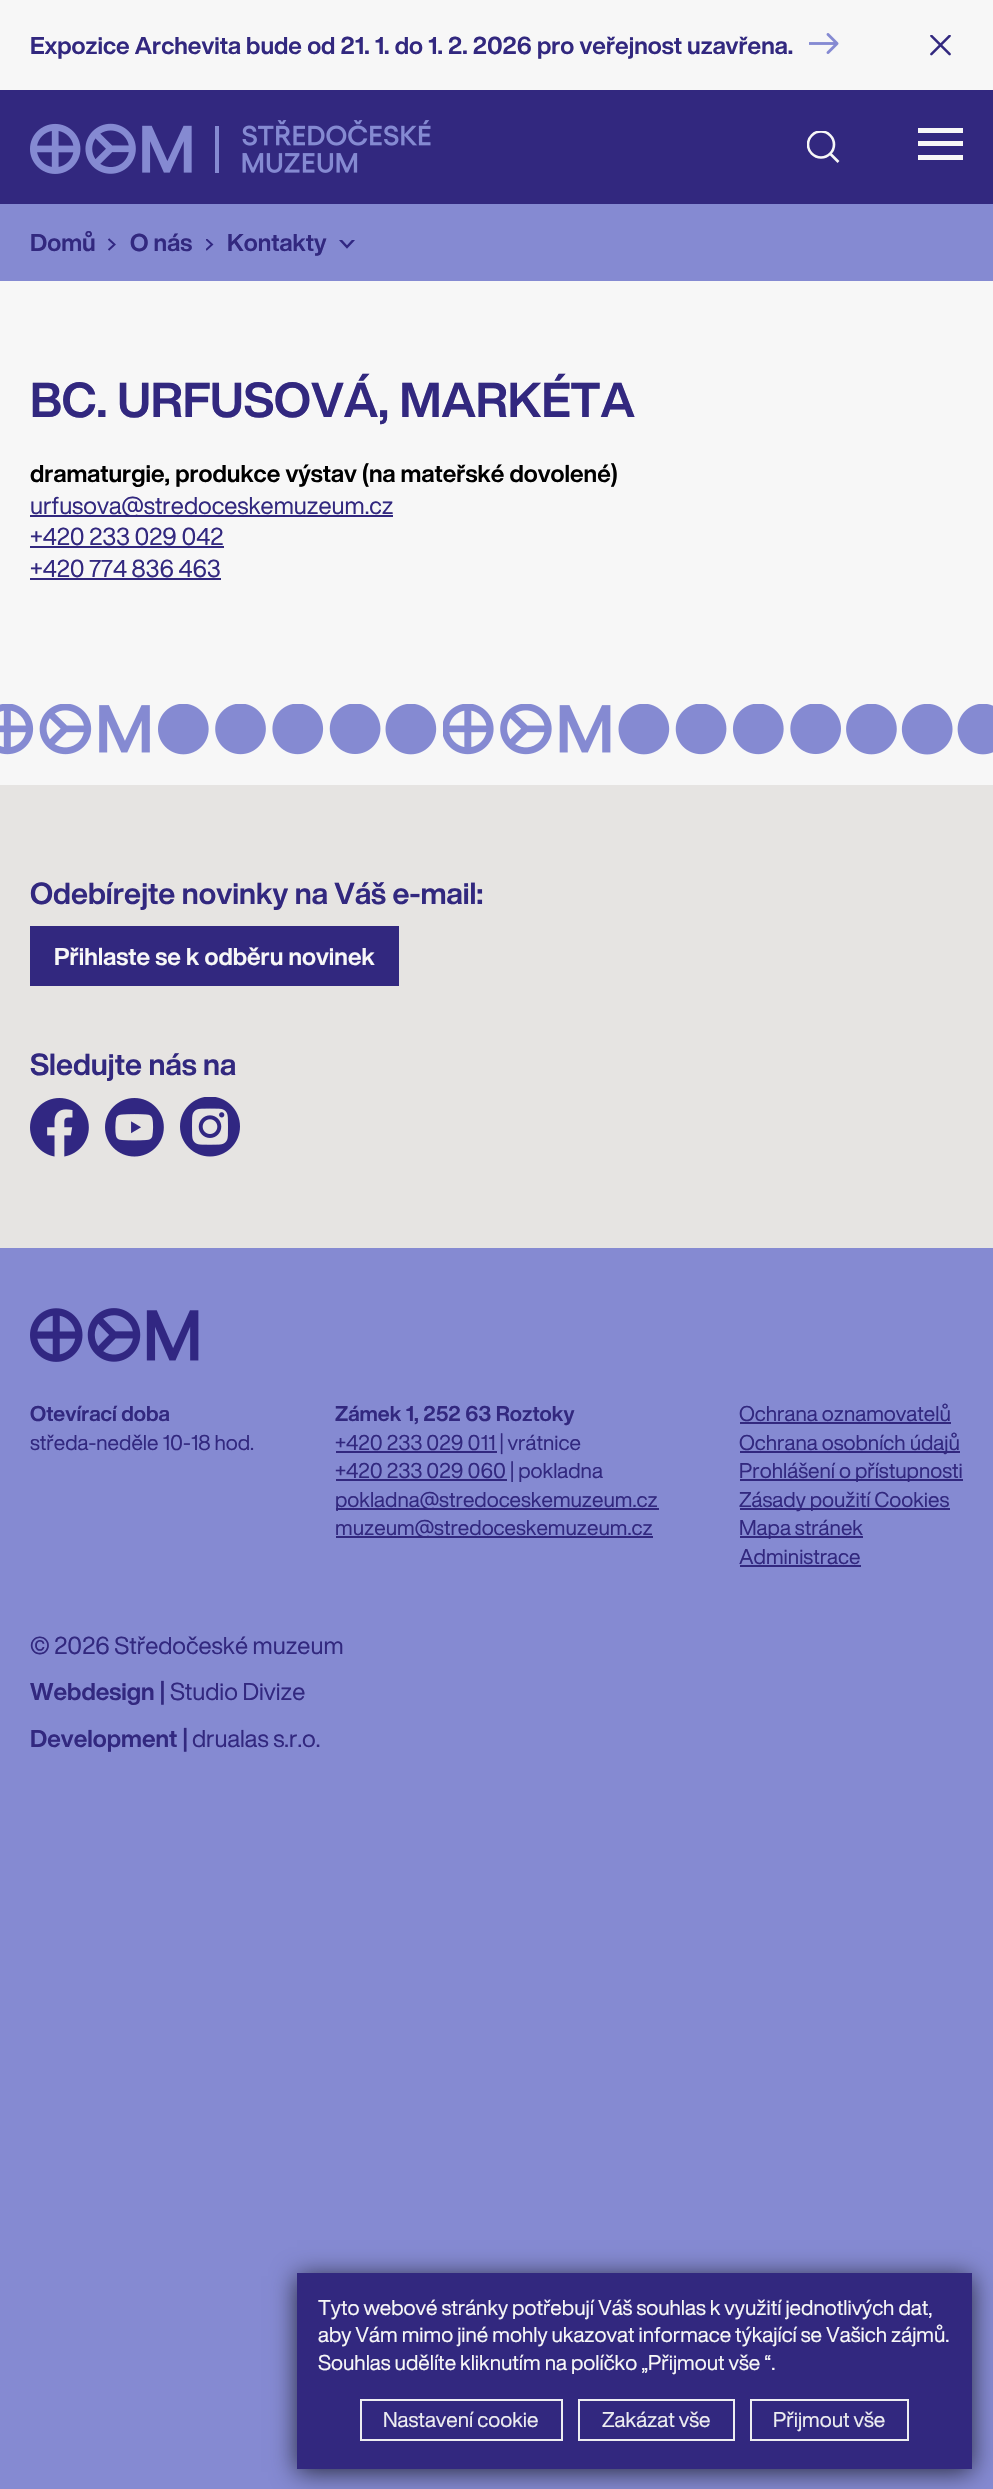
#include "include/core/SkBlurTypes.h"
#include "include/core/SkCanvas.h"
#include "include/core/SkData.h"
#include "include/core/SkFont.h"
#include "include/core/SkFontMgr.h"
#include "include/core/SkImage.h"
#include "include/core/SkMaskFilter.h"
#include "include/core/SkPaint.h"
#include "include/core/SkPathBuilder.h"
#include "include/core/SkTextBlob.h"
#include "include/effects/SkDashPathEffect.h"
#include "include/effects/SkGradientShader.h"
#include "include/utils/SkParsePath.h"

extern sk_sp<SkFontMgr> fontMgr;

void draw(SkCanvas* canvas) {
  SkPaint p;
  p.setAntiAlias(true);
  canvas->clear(SkColorSetRGB(133, 138, 210));
  p.setColor(SkColorSetRGB(50, 40, 127));
  canvas->drawRect(SkRect::MakeLTRB(0, 90, 993, 204), p);
  p.setColor(SkColorSetRGB(247, 247, 247));
  canvas->drawRect(SkRect::MakeLTRB(0, 0, 993, 90), p);
  canvas->drawImageRect(SkImages::DeferredFromEncodedData(SkData::MakeFromFileName("images/1.png")), SkRect::MakeLTRB(809, 33, 839, 54), SkSamplingOptions());
  canvas->drawImageRect(SkImages::DeferredFromEncodedData(SkData::MakeFromFileName("images/2.png")), SkRect::MakeLTRB(930, 35, 951, 56), SkSamplingOptions());
  canvas->drawImageRect(SkImages::DeferredFromEncodedData(SkData::MakeFromFileName("images/3.png")), SkRect::MakeLTRB(30, 120, 431, 174), SkSamplingOptions());
  canvas->save();
  canvas->clipRect(SkRect::MakeLTRB(807, 131, 840, 164));
  p.setStyle(SkPaint::kStroke_Style);
  p.setStrokeWidth(2.6f);
  canvas->drawCircle(821, 144.5f, 13, p);
  canvas->restore();
  canvas->drawPath(SkPathBuilder().moveTo(830.5f, 154).lineTo(838.5f, 162).detach(), p);
  p.setStyle(SkPaint::kFill_Style);
  canvas->drawRect(SkRect::MakeLTRB(918, 128, 963, 133), p);
  canvas->drawRect(SkRect::MakeLTRB(918, 141, 963, 146), p);
  canvas->drawRect(SkRect::MakeLTRB(918, 155, 963, 160), p);
  p.setStyle(SkPaint::kStroke_Style);
  p.setStrokeWidth(2);
  p.setColor(SkColorSetRGB(49, 39, 130));
  canvas->drawPath(SkPathBuilder().moveTo(108.5f, 239).lineTo(114.5f, 244.5f).lineTo(108.5f, 250).detach(), p);
  canvas->save();
  canvas->clipRect(SkRect::MakeLTRB(206, 239, 215, 251));
  canvas->drawPath(SkPathBuilder().moveTo(206, 239).lineTo(212, 244.5f).lineTo(206, 250).detach(), p);
  canvas->restore();
  canvas->save();
  canvas->clipRect(SkRect::MakeLTRB(339, 240, 356, 249));
  p.setStrokeWidth(2.5f);
  canvas->drawPath(SkPathBuilder().moveTo(354, 239.5f).lineTo(347, 247).lineTo(340, 239.5f).detach(), p);
  canvas->restore();
  p.setStyle(SkPaint::kFill_Style);
  p.setColor(SkColorSetRGB(247, 247, 247));
  canvas->drawRect(SkRect::MakeLTRB(0, 281, 993, 785), p);
  p.setColor(SkColorSetRGB(50, 40, 127));
  canvas->drawRect(SkRect::MakeLTRB(30, 515, 393, 517), p);
  canvas->drawRect(SkRect::MakeLTRB(30, 546, 224, 548), p);
  canvas->drawRect(SkRect::MakeLTRB(30, 578, 221, 580), p);
  p.setColor(SkColorSetARGB(179, 0, 0, 0));
  p.setMaskFilter(SkMaskFilter::MakeBlur(kNormal_SkBlurStyle, 12));
  canvas->drawRect(SkRect::MakeLTRB(297, 2276, 972, 2472), p);
  p.setMaskFilter(nullptr);
  p.setColor(SkColorSetRGB(50, 40, 127));
  canvas->drawRect(SkRect::MakeLTRB(297, 2273, 972, 2469), p);
  p.setStyle(SkPaint::kStroke_Style);
  p.setStrokeWidth(2);
  p.setColor(SkColorSetRGB(237, 237, 241));
  canvas->drawRect(SkRect::MakeLTRB(361, 2400, 562, 2440), p);
  canvas->drawRect(SkRect::MakeLTRB(579, 2400, 734, 2440), p);
  canvas->drawRect(SkRect::MakeLTRB(751, 2400, 908, 2440), p);
  canvas->drawImageRect(SkImages::DeferredFromEncodedData(SkData::MakeFromFileName("images/4.png")), SkRect::MakeLTRB(0, 704, 437, 755), SkSamplingOptions());
  canvas->drawImageRect(SkImages::DeferredFromEncodedData(SkData::MakeFromFileName("images/5.png")), SkRect::MakeLTRB(443, 704, 993, 755), SkSamplingOptions());
  p.setStyle(SkPaint::kFill_Style);
  p.setColor(SkColorSetRGB(230, 228, 226));
  canvas->drawRect(SkRect::MakeLTRB(0, 785, 993, 1248), p);
  p.setColor(SkColorSetRGB(50, 40, 127));
  canvas->drawRect(SkRect::MakeLTRB(30, 926, 399, 986), p);
  canvas->drawImageRect(SkImages::DeferredFromEncodedData(SkData::MakeFromFileName("images/6.png")), SkRect::MakeLTRB(30, 1098, 89, 1157), SkSamplingOptions());
  canvas->drawImageRect(SkImages::DeferredFromEncodedData(SkData::MakeFromFileName("images/7.png")), SkRect::MakeLTRB(105, 1098, 164, 1157), SkSamplingOptions());
  canvas->drawImageRect(SkImages::DeferredFromEncodedData(SkData::MakeFromFileName("images/8.png")), SkRect::MakeLTRB(180, 1097, 240, 1157), SkSamplingOptions());
  canvas->drawImageRect(SkImages::DeferredFromEncodedData(SkData::MakeFromFileName("images/9.png")), SkRect::MakeLTRB(30, 1308, 199, 1362), SkSamplingOptions());
  canvas->drawRect(SkRect::MakeLTRB(336, 1451, 497, 1453), p);
  canvas->drawRect(SkRect::MakeLTRB(336, 1479, 507, 1481), p);
  canvas->drawRect(SkRect::MakeLTRB(336, 1508, 659, 1510), p);
  canvas->drawRect(SkRect::MakeLTRB(336, 1536, 653, 1538), p);
  canvas->drawRect(SkRect::MakeLTRB(740, 1422, 951, 1424), p);
  canvas->drawRect(SkRect::MakeLTRB(740, 1451, 960, 1453), p);
  canvas->drawRect(SkRect::MakeLTRB(740, 1479, 963, 1481), p);
  canvas->drawRect(SkRect::MakeLTRB(740, 1508, 950, 1510), p);
  canvas->drawRect(SkRect::MakeLTRB(740, 1536, 863, 1538), p);
  canvas->drawRect(SkRect::MakeLTRB(740, 1565, 861, 1567), p);
  SkFont font1(fontMgr->matchFamilyStyle("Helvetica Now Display", SkFontStyle::Bold()), 24);
  font1.setSubpixel(true);
  canvas->drawString("Expozice Archevita bude od 21. 1. do 1. 2. 2026 pro veřejnost uzavřena.", 30, 54, font1, p);
  canvas->drawString("Domů", 30, 251, font1, p);
  canvas->drawString("O nás", 130, 251, font1, p);
  canvas->drawString("Kontakty", 227, 251, font1, p);
  SkFont font2(fontMgr->matchFamilyStyle("Helvetica Now Display", SkFontStyle::Bold()), 48);
  font2.setSubpixel(true);
  canvas->drawString("BC. URFUSOVÁ, MARKÉTA", 30, 417, font2, p);
  p.setColor(SK_ColorBLACK);
  canvas->drawString("dramaturgie, produkce výstav (na mateřské dovolené)", 30, 482, font1, p);
  SkFont font3(fontMgr->matchFamilyStyle("Helvetica Now Display", SkFontStyle::Normal()), 24);
  font3.setSubpixel(true);
  p.setColor(SkColorSetRGB(50, 40, 127));
  canvas->drawString("urfusova@stredoceskemuzeum.cz", 30, 514, font3, p);
  canvas->drawString("+420 233 029 042", 30, 545, font3, p);
  canvas->drawString("+420 774 836 463", 30, 577, font3, p);
  SkFont font4(fontMgr->matchFamilyStyle("Helvetica Now Display", SkFontStyle::Normal()), 21);
  font4.setSubpixel(true);
  p.setColor(SkColorSetRGB(247, 247, 247));
  canvas->drawString("Tyto webové stránky potřebují Váš souhlas k využití jednotlivých dat,", 318, 2315, font4, p);
  canvas->drawString("aby Vám mimo jiné mohly ukazovat informace týkající se Vašich zájmů.", 318, 2342, font4, p);
  canvas->drawString("Souhlas udělíte kliknutím na políčko „Přijmout vše “.", 318, 2370, font4, p);
  p.setColor(SkColorSetRGB(237, 237, 241));
  canvas->drawString("Nastavení cookie", 383, 2427, font4, p);
  canvas->drawString("Zakázat vše", 602, 2427, font4, p);
  canvas->drawString("Přijmout vše", 773, 2427, font4, p);
  SkFont font5(fontMgr->matchFamilyStyle("Helvetica Now Display", SkFontStyle::Bold()), 30);
  font5.setSubpixel(true);
  p.setColor(SkColorSetRGB(50, 40, 127));
  canvas->drawString("Odebírejte novinky na Váš e-mail:", 30, 904, font5, p);
  p.setColor(SkColorSetRGB(247, 247, 247));
  canvas->drawString("Přihlaste se k odběru novinek", 54, 965, font1, p);
  p.setColor(SkColorSetRGB(50, 40, 127));
  canvas->drawString("Sledujte nás na", 30, 1075, font5, p);
  SkFont font6(fontMgr->matchFamilyStyle("Helvetica Now Display", SkFontStyle::Bold()), 21);
  font6.setSubpixel(true);
  canvas->drawString("Otevírací doba", 30, 1421, font6, p);
  canvas->drawString("středa-neděle 10-18 hod.", 30, 1450, font4, p);
  canvas->drawString("Zámek 1, 252 63 Roztoky", 335, 1421, font6, p);
  canvas->drawString("+420 233 029 011 | vrátnice", 335, 1450, font4, p);
  canvas->drawString("+420 233 029 060 | pokladna", 335, 1478, font4, p);
  canvas->drawString("pokladna@stredoceskemuzeum.cz", 335, 1507, font4, p);
  canvas->drawString("muzeum@stredoceskemuzeum.cz", 335, 1535, font4, p);
  canvas->drawString("Ochrana oznamovatelů", 739, 1421, font4, p);
  canvas->drawString("Ochrana osobních údajů", 739, 1450, font4, p);
  canvas->drawString("Prohlášení o přístupnosti", 739, 1478, font4, p);
  canvas->drawString("Zásady použití Cookies", 739, 1507, font4, p);
  canvas->drawString("Mapa stránek", 739, 1535, font4, p);
  canvas->drawString("Administrace", 739, 1564, font4, p);
  canvas->drawString("© 2026 Středočeské muzeum", 30, 1654, font3, p);
  canvas->drawString("Webdesign |", 30, 1700, font1, p);
  canvas->drawString("Studio Divize", 170, 1700, font3, p);
  canvas->drawString("Development |", 30, 1747, font1, p);
  canvas->drawString("drualas s.r.o.", 192, 1747, font3, p);
}
